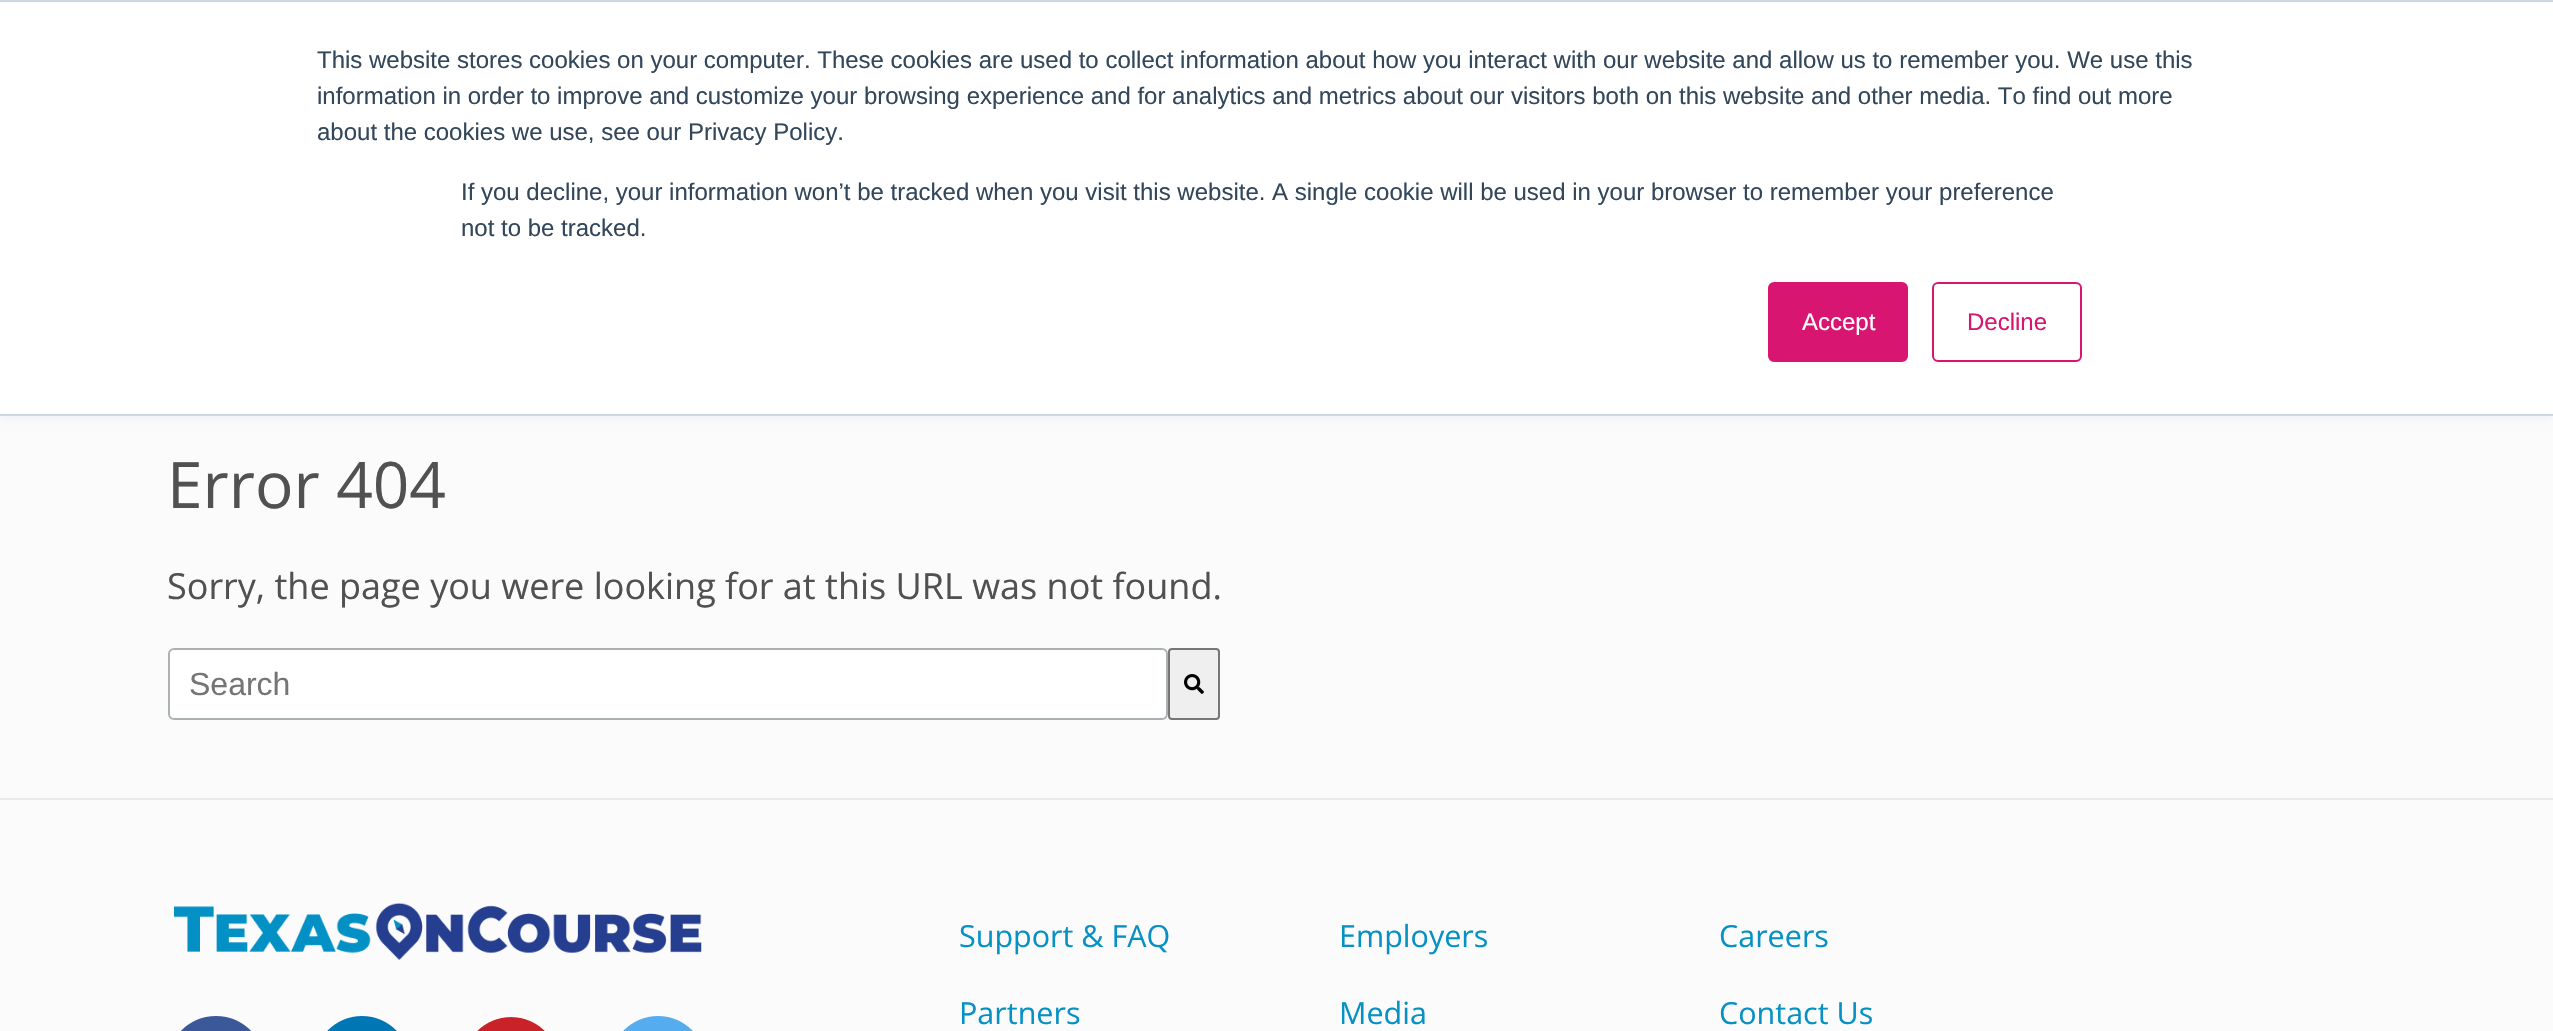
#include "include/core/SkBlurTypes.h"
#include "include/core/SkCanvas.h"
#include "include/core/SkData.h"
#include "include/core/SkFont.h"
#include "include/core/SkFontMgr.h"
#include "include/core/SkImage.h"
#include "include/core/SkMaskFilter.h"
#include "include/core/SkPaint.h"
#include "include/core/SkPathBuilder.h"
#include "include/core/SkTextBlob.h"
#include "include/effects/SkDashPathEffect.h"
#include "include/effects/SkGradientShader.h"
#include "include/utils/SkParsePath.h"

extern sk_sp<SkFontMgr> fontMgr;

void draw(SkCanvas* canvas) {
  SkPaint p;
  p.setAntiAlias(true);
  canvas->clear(SkColorSetRGB(251, 251, 251));
  p.setColor(SkColorSetRGB(234, 240, 246));
  p.setMaskFilter(SkMaskFilter::MakeBlur(kNormal_SkBlurStyle, 5));
  canvas->drawRect(SkRect::MakeLTRB(0, 2, 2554, 418), p);
  p.setMaskFilter(nullptr);
  p.setColor(SK_ColorWHITE);
  canvas->drawRect(SkRect::MakeLTRB(0, 2, 2553, 414), p);
  p.setColor(SkColorSetRGB(203, 214, 226));
  canvas->drawRect(SkRect::MakeLTRB(0, 0, 2553, 2), p);
  canvas->drawRect(SkRect::MakeLTRB(0, 414, 2553, 416), p);
  p.setColor(SkColorSetRGB(216, 22, 113));
  canvas->drawRoundRect(SkRect::MakeLTRB(1769, 283, 1907, 361), 5, 5, p);
  p.setStyle(SkPaint::kStroke_Style);
  p.setStrokeWidth(2);
  canvas->drawRoundRect(SkRect::MakeLTRB(1769, 283, 1907, 361), 5, 5, p);
  canvas->drawRoundRect(SkRect::MakeLTRB(1933, 283, 2081, 361), 5, 5, p);
  p.setStyle(SkPaint::kFill_Style);
  p.setColor(SK_ColorWHITE);
  canvas->drawRoundRect(SkRect::MakeLTRB(169, 649, 1167, 719), 5, 5, p);
  p.setStyle(SkPaint::kStroke_Style);
  p.setColor(SkColorSetRGB(171, 176, 178));
  canvas->drawRoundRect(SkRect::MakeLTRB(169, 649, 1167, 719), 5, 5, p);
  p.setStyle(SkPaint::kFill_Style);
  p.setColor(SkColorSetRGB(239, 239, 239));
  canvas->drawRoundRect(SkRect::MakeLTRB(1169, 649, 1219, 719), 3, 3, p);
  p.setStyle(SkPaint::kStroke_Style);
  p.setColor(SkColorSetRGB(118, 118, 118));
  canvas->drawRoundRect(SkRect::MakeLTRB(1169, 649, 1219, 719), 3, 3, p);
  canvas->drawImageRect(SkImages::DeferredFromEncodedData(SkData::MakeFromFileName("images/1.png")), SkRect::MakeLTRB(1184, 674, 1204, 694), SkSamplingOptions());
  p.setStyle(SkPaint::kFill_Style);
  p.setColor(SkColorSetRGB(234, 234, 234));
  canvas->drawRect(SkRect::MakeLTRB(0, 798, 2553, 800), p);
  canvas->drawImageRect(SkImages::DeferredFromEncodedData(SkData::MakeFromFileName("images/2.png")), SkRect::MakeLTRB(174, 903, 702, 961), SkSamplingOptions());
  p.setColor(SkColorSetRGB(59, 89, 152));
  canvas->drawPath(SkPathBuilder(SkPathFillType::kEvenOdd).moveTo(168, 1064).cubicTo(168, 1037, 189, 1016, 216, 1016).cubicTo(243, 1016, 264, 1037, 264, 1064).cubicTo(264, 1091, 243, 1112, 216, 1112).cubicTo(189, 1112, 168, 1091, 168, 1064).close().detach(), p);
  canvas->drawImageRect(SkImages::DeferredFromEncodedData(SkData::MakeFromFileName("images/3.png")), SkRect::MakeLTRB(327, 1016, 397, 1031), SkSamplingOptions());
  canvas->drawImageRect(SkImages::DeferredFromEncodedData(SkData::MakeFromFileName("images/4.png")), SkRect::MakeLTRB(477, 1017, 545, 1031), SkSamplingOptions());
  canvas->drawImageRect(SkImages::DeferredFromEncodedData(SkData::MakeFromFileName("images/5.png")), SkRect::MakeLTRB(623, 1016, 693, 1031), SkSamplingOptions());
  SkFont font1(fontMgr->matchFamilyStyle("Liberation Sans", SkFontStyle::Normal()), 24);
  font1.setSubpixel(true);
  p.setColor(SkColorSetRGB(51, 71, 91));
  canvas->drawString("This website stores cookies on your computer. These cookies are used to collect information about how you interact with our website and allow us to remember you. We use this", 317, 68, font1, p);
  canvas->drawString("information in order to improve and customize your browsing experience and for analytics and metrics about our visitors both on this website and other media. To find out more", 317, 104, font1, p);
  canvas->drawString("about the cookies we use, see our Privacy Policy.", 317, 140, font1, p);
  canvas->drawString("If you decline, your information won’t be tracked when you visit this website. A single cookie will be used in your browser to remember your preference", 461, 200, font1, p);
  canvas->drawString("not to be tracked.", 461, 236, font1, p);
  p.setColor(SK_ColorWHITE);
  canvas->drawString("Accept", 1802, 330, font1, p);
  p.setColor(SkColorSetRGB(216, 22, 113));
  canvas->drawString("Decline", 1967, 330, font1, p);
  SkFont font2(fontMgr->matchFamilyStyle("Open Sans", SkFontStyle::Normal()), 64);
  font2.setSubpixel(true);
  p.setColor(SkColorSetRGB(81, 81, 81));
  canvas->drawString("Error 404", 167, 508, font2, p);
  SkFont font3(fontMgr->matchFamilyStyle("Open Sans", SkFontStyle::Normal()), 36);
  font3.setSubpixel(true);
  canvas->drawString("Sorry, the page you were looking for at this URL was not found.", 167, 599, font3, p);
  SkFont font4(fontMgr->matchFamilyStyle("Liberation Sans", SkFontStyle::Normal()), 32);
  font4.setSubpixel(true);
  p.setColor(SkColorSetRGB(117, 117, 117));
  canvas->drawString("Search", 189, 695, font4, p);
  SkFont font5(fontMgr->matchFamilyStyle("Open Sans", SkFontStyle::Normal()), 30.5f);
  font5.setSubpixel(true);
  p.setColor(SkColorSetRGB(6, 145, 196));
  canvas->drawString("Support & FAQ", 959, 947, font5, p);
  canvas->drawString("Partners", 959, 1024, font5, p);
  canvas->drawString("Employers", 1339, 947, font5, p);
  canvas->drawString("Media", 1339, 1024, font5, p);
  canvas->drawString("Careers", 1719, 947, font5, p);
  canvas->drawString("Contact Us", 1719, 1024, font5, p);
}
